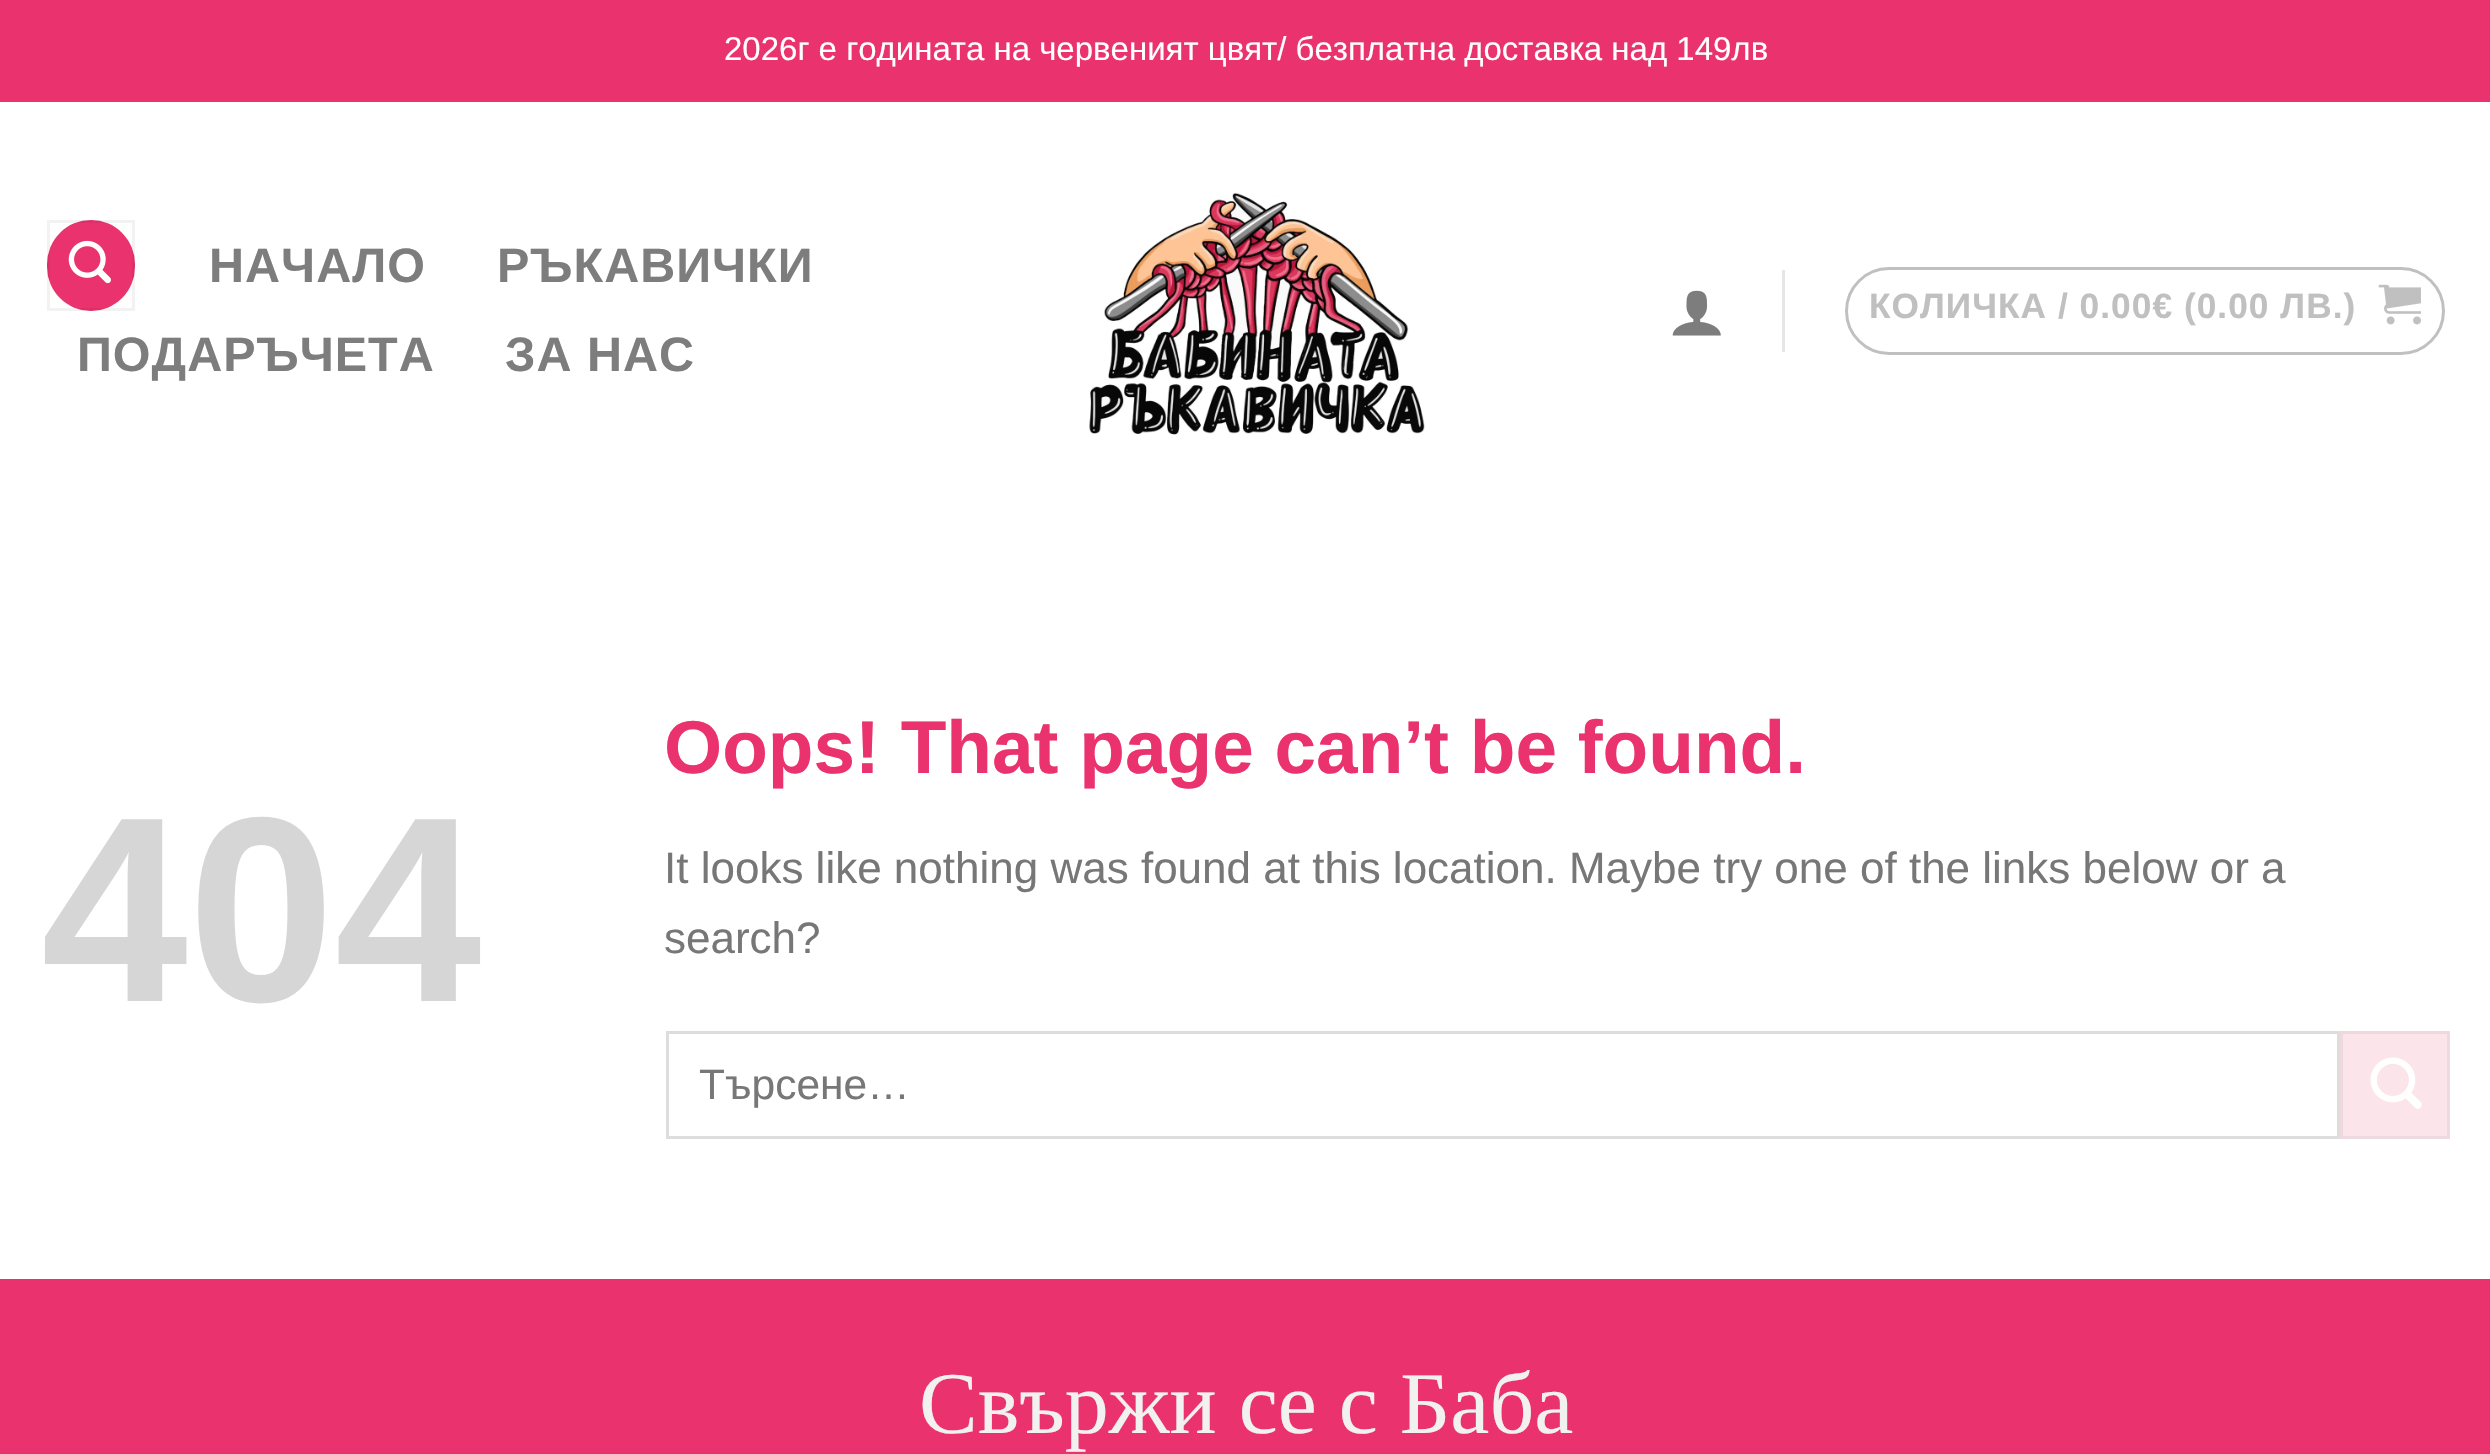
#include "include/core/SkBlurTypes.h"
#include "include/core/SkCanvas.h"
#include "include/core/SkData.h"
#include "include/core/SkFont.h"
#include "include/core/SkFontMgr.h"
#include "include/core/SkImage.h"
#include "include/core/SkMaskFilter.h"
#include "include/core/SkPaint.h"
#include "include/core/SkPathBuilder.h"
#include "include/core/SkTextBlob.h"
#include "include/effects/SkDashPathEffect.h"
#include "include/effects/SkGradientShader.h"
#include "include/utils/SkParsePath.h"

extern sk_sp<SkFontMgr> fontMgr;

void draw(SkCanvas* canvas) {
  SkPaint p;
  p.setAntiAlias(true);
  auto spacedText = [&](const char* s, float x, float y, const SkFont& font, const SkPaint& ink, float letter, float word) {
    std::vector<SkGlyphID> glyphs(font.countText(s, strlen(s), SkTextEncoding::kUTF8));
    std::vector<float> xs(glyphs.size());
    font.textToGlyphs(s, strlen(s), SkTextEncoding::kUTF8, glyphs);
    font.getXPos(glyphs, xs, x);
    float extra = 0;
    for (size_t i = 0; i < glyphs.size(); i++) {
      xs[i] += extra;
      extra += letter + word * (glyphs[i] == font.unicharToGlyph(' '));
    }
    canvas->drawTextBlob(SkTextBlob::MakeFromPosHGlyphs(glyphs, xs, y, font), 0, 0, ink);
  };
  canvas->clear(SK_ColorWHITE);
  p.setColor(SkColorSetRGB(234, 50, 110));
  canvas->drawRect(SkRect::MakeLTRB(0, 0, 2490, 102), p);
  canvas->drawRoundRect(SkRect::MakeLTRB(47, 220, 135, 311), 44, 44, p);
  p.setStyle(SkPaint::kStroke_Style);
  p.setStrokeWidth(3);
  p.setColor(SkColorSetARGB(13, 0, 0, 0));
  canvas->drawRect(SkRect::MakeLTRB(48.5f, 221.5f, 133.5f, 309.5f), p);
  canvas->drawImageRect(SkImages::DeferredFromEncodedData(SkData::MakeFromFileName("images/1.png")), SkRect::MakeLTRB(68, 240, 111, 284), SkSamplingOptions());
  canvas->drawImageRect(SkImages::DeferredFromEncodedData(SkData::MakeFromFileName("images/2.png")), SkRect::MakeLTRB(1089, 192, 1425, 435), SkSamplingOptions());
  canvas->drawImageRect(SkImages::DeferredFromEncodedData(SkData::MakeFromFileName("images/3.png")), SkRect::MakeLTRB(1672, 290, 1721, 336), SkSamplingOptions());
  p.setStyle(SkPaint::kFill_Style);
  p.setColor(SkColorSetRGB(230, 230, 230));
  canvas->drawRect(SkRect::MakeLTRB(1782, 270, 1785, 352), p);
  p.setStyle(SkPaint::kStroke_Style);
  p.setColor(SkColorSetRGB(192, 192, 192));
  canvas->drawRoundRect(SkRect::MakeLTRB(1846.5f, 268.5f, 2443.5f, 353.5f), 42.5f, 42.5f, p);
  canvas->drawImageRect(SkImages::DeferredFromEncodedData(SkData::MakeFromFileName("images/4.png")), SkRect::MakeLTRB(2378, 284, 2421, 325), SkSamplingOptions());
  p.setColor(SkColorSetRGB(221, 221, 221));
  canvas->drawRect(SkRect::MakeLTRB(667.5f, 1032.5f, 2338.5f, 1137.5f), p);
  p.setStyle(SkPaint::kFill_Style);
  p.setColor(SkColorSetRGB(251, 228, 234));
  canvas->drawRect(SkRect::MakeLTRB(2341.5f, 1032.5f, 2448.5f, 1137.5f), p);
  p.setStyle(SkPaint::kStroke_Style);
  p.setColor(SkColorSetRGB(238, 217, 222));
  canvas->drawRect(SkRect::MakeLTRB(2341.5f, 1032.5f, 2448.5f, 1137.5f), p);
  canvas->drawImageRect(SkImages::DeferredFromEncodedData(SkData::MakeFromFileName("images/5.png")), SkRect::MakeLTRB(2370, 1057, 2422, 1109), SkSamplingOptions());
  p.setStyle(SkPaint::kFill_Style);
  p.setColor(SkColorSetRGB(234, 50, 110));
  canvas->drawRect(SkRect::MakeLTRB(0, 1279, 2490, 1454), p);
  SkFont font1(fontMgr->matchFamilyStyle("Liberation Sans", SkFontStyle::Normal()), 33);
  font1.setSubpixel(true);
  p.setColor(SK_ColorWHITE);
  canvas->drawString("2026г е годината на червеният цвят/ безплатна доставка над 149лв", 724, 60, font1, p);
  SkFont font2(fontMgr->matchFamilyStyle("Liberation Sans", SkFontStyle::Bold()), 48.5f);
  font2.setSubpixel(true);
  p.setColor(SkColorSetRGB(125, 125, 125));
  spacedText("НАЧАЛО", 209, 282, font2, p, 1, 0);
  spacedText("РЪКАВИЧКИ", 497, 282, font2, p, 1, 0);
  spacedText("ПОДАРЪЧЕТА", 77, 371, font2, p, 1, 0);
  spacedText("ЗА НАС", 505, 371, font2, p, 1, 0);
  SkFont font3(fontMgr->matchFamilyStyle("Liberation Sans", SkFontStyle::Bold()), 35.25f);
  font3.setSubpixel(true);
  p.setColor(SkColorSetRGB(192, 192, 192));
  spacedText("КОЛИЧКА / 0.00€ (0.00 ЛВ.)", 1869, 318, font3, p, 1.05f, 0);
  SkFont font4(fontMgr->matchFamilyStyle("Liberation Sans", SkFontStyle::Bold()), 264);
  font4.setSubpixel(true);
  p.setColor(SkColorSetRGB(214, 214, 214));
  canvas->drawString("404", 41, 1001, font4, p);
  SkFont font5(fontMgr->matchFamilyStyle("Liberation Sans", SkFontStyle::Bold()), 74.75f);
  font5.setSubpixel(true);
  p.setColor(SkColorSetRGB(234, 50, 110));
  canvas->drawString("Oops! That page can’t be found.", 664, 773, font5, p);
  SkFont font6(fontMgr->matchFamilyStyle("Liberation Sans", SkFontStyle::Normal()), 44);
  font6.setSubpixel(true);
  p.setColor(SkColorSetRGB(119, 119, 119));
  canvas->drawString("It looks like nothing was found at this location. Maybe try one of the links below or a", 664, 883, font6, p);
  canvas->drawString("search?", 664, 953, font6, p);
  SkFont font7(fontMgr->matchFamilyStyle("Liberation Sans", SkFontStyle::Normal()), 42.5f);
  font7.setSubpixel(true);
  canvas->drawString("Търсене…", 699, 1099, font7, p);
  SkFont font8(fontMgr->matchFamilyStyle("Liberation Serif", SkFontStyle::Normal()), 88);
  font8.setSubpixel(true);
  p.setColor(SkColorSetRGB(241, 241, 241));
  canvas->drawString("Свържи се с Баба", 919, 1433, font8, p);
}
